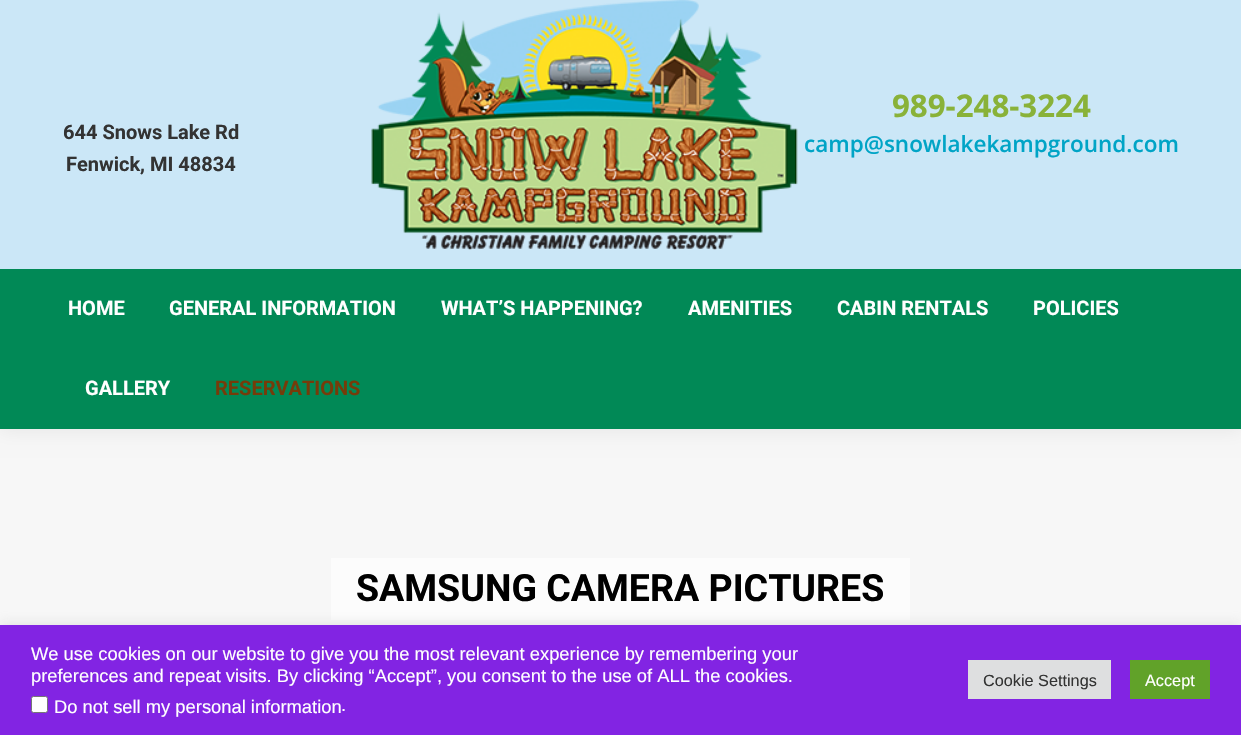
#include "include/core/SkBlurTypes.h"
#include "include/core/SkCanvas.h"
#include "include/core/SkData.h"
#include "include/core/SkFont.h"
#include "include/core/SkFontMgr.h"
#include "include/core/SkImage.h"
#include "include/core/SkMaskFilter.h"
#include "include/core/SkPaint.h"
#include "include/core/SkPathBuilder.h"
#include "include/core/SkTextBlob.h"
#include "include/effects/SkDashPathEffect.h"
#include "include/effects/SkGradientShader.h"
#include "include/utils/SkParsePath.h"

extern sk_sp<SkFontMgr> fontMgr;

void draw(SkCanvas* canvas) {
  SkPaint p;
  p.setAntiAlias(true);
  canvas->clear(SkColorSetRGB(247, 247, 247));
  p.setColor(SkColorSetARGB(18, 0, 0, 0));
  p.setMaskFilter(SkMaskFilter::MakeBlur(kNormal_SkBlurStyle, 9.5f));
  canvas->drawRect(SkRect::MakeLTRB(-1, -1, 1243, 430), p);
  p.setMaskFilter(nullptr);
  p.setColor(SkColorSetRGB(203, 231, 247));
  canvas->drawRect(SkRect::MakeLTRB(0, 0, 1241, 269), p);
  canvas->drawImageRect(SkImages::DeferredFromEncodedData(SkData::MakeFromFileName("images/1.png")), SkRect::MakeLTRB(371, 0, 798, 250), SkSamplingOptions());
  p.setColor(SkColorSetRGB(1, 137, 86));
  canvas->drawRect(SkRect::MakeLTRB(0, 269, 1241, 429), p);
  p.setColor(SkColorSetRGB(252, 252, 252));
  canvas->drawRect(SkRect::MakeLTRB(331, 558, 910, 620), p);
  p.setColor(SkColorSetARGB(77, 172, 171, 171));
  p.setMaskFilter(SkMaskFilter::MakeBlur(kNormal_SkBlurStyle, 6));
  canvas->drawRect(SkRect::MakeLTRB(0, 624, 1241, 734), p);
  p.setMaskFilter(nullptr);
  p.setColor(SkColorSetRGB(130, 36, 227));
  canvas->drawRect(SkRect::MakeLTRB(0, 625, 1241, 735), p);
  p.setColor(SK_ColorWHITE);
  canvas->drawRoundRect(SkRect::MakeLTRB(31.5f, 696.5f, 47.5f, 712.5f), 2, 2, p);
  p.setStyle(SkPaint::kStroke_Style);
  p.setStrokeWidth(1);
  p.setColor(SkColorSetRGB(118, 118, 118));
  canvas->drawRoundRect(SkRect::MakeLTRB(31.5f, 696.5f, 47.5f, 712.5f), 2, 2, p);
  p.setStyle(SkPaint::kFill_Style);
  p.setColor(SkColorSetRGB(222, 223, 224));
  canvas->drawRect(SkRect::MakeLTRB(968, 660, 1111, 699), p);
  p.setColor(SkColorSetRGB(97, 162, 41));
  canvas->drawRect(SkRect::MakeLTRB(1130, 660, 1210, 699), p);
  SkFont font1(fontMgr->matchFamilyStyle("Roboto", SkFontStyle::Bold()), 20);
  font1.setSubpixel(true);
  p.setColor(SkColorSetRGB(51, 51, 51));
  canvas->drawString("644 Snows Lake Rd", 63, 139, font1, p);
  canvas->drawString("Fenwick, MI 48834", 66, 171, font1, p);
  SkFont font2(fontMgr->matchFamilyStyle("Open Sans", SkFontStyle::Bold()), 31.25f);
  font2.setSubpixel(true);
  p.setColor(SkColorSetRGB(137, 178, 57));
  canvas->drawString("989-248-3224", 892, 117, font2, p);
  SkFont font3(fontMgr->matchFamilyStyle("Open Sans", SkFontStyle(600, SkFontStyle::kNormal_Width, SkFontStyle::kUpright_Slant)), 22.5f);
  font3.setSubpixel(true);
  p.setColor(SkColorSetRGB(0, 164, 198));
  canvas->drawString("camp@snowlakekampground.com", 804, 152, font3, p);
  p.setColor(SK_ColorWHITE);
  canvas->drawString("HOME", 68, 315, font1, p);
  canvas->drawString("GENERAL INFORMATION", 169, 315, font1, p);
  canvas->drawString("WHAT’S HAPPENING?", 441, 315, font1, p);
  canvas->drawString("AMENITIES", 688, 315, font1, p);
  canvas->drawString("CABIN RENTALS", 837, 315, font1, p);
  canvas->drawString("POLICIES", 1033, 315, font1, p);
  canvas->drawString("GALLERY", 85, 395, font1, p);
  p.setColor(SkColorSetRGB(117, 60, 10));
  canvas->drawString("RESERVATIONS", 215, 395, font1, p);
  SkFont font4(fontMgr->matchFamilyStyle("Roboto", SkFontStyle::Bold()), 37.5f);
  font4.setSubpixel(true);
  p.setColor(SK_ColorBLACK);
  canvas->drawString("SAMSUNG CAMERA PICTURES", 356, 601, font4, p);
  SkFont font5(fontMgr->matchFamilyStyle("Liberation Sans", SkFontStyle::Normal()), 18.35f);
  font5.setSubpixel(true);
  p.setColor(SK_ColorWHITE);
  canvas->drawString("We use cookies on our website to give you the most relevant experience by remembering your", 31, 660, font5, p);
  canvas->drawString("preferences and repeat visits. By clicking “Accept”, you consent to the use of ALL the cookies.", 31, 682, font5, p);
  canvas->drawString("Do not sell my personal information", 54, 713, font5, p);
  canvas->drawString(".", 341, 711, font5, p);
  SkFont font6(fontMgr->matchFamilyStyle("Liberation Sans", SkFontStyle::Normal()), 16.25f);
  font6.setSubpixel(true);
  p.setColor(SkColorSetRGB(51, 51, 51));
  canvas->drawString("Cookie Settings", 983, 686, font6, p);
  p.setColor(SK_ColorWHITE);
  canvas->drawString("Accept", 1145, 686, font6, p);
}
